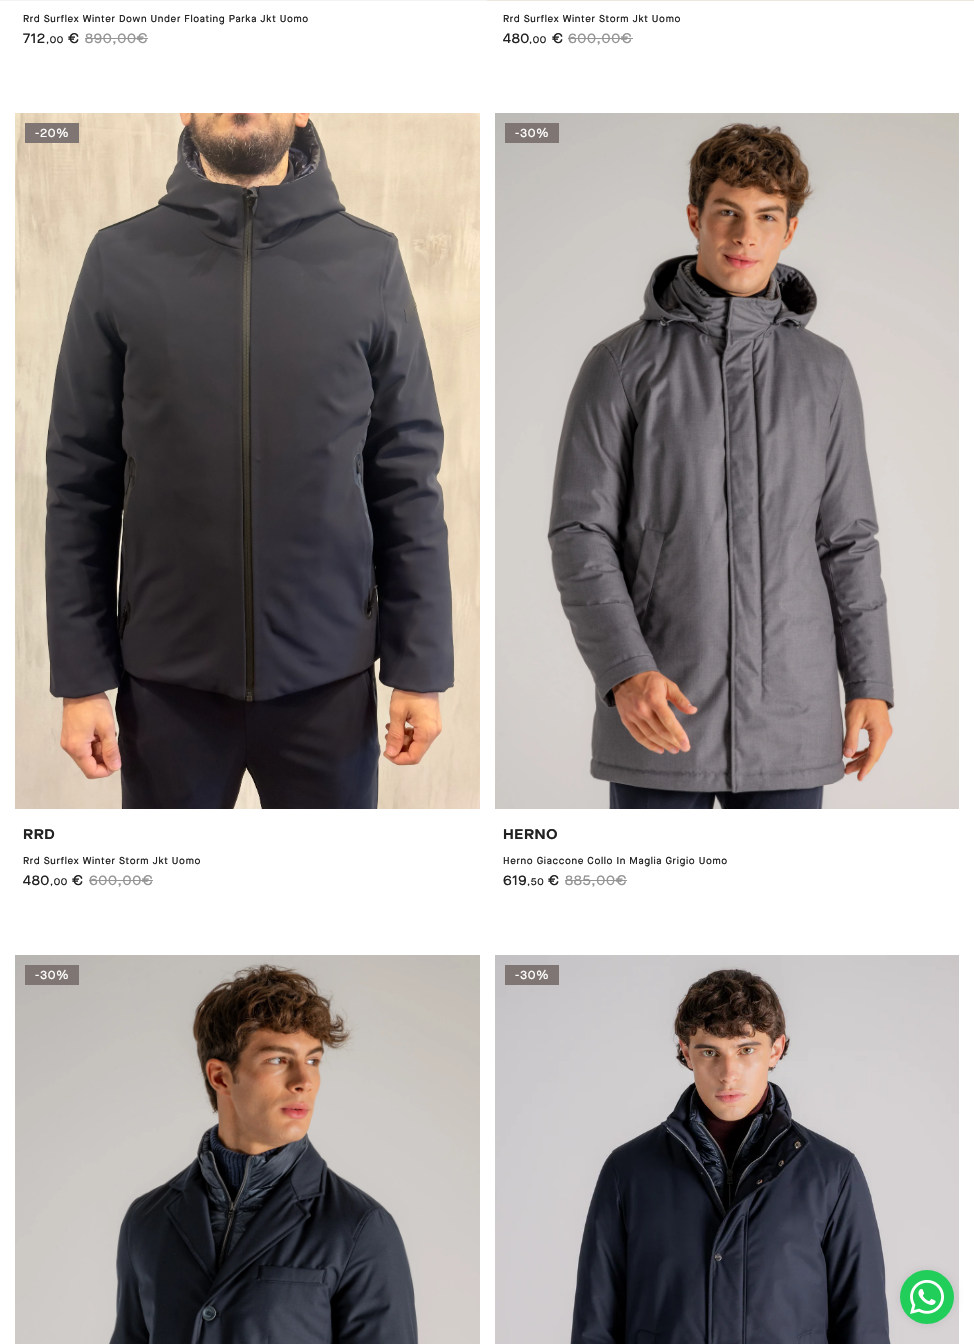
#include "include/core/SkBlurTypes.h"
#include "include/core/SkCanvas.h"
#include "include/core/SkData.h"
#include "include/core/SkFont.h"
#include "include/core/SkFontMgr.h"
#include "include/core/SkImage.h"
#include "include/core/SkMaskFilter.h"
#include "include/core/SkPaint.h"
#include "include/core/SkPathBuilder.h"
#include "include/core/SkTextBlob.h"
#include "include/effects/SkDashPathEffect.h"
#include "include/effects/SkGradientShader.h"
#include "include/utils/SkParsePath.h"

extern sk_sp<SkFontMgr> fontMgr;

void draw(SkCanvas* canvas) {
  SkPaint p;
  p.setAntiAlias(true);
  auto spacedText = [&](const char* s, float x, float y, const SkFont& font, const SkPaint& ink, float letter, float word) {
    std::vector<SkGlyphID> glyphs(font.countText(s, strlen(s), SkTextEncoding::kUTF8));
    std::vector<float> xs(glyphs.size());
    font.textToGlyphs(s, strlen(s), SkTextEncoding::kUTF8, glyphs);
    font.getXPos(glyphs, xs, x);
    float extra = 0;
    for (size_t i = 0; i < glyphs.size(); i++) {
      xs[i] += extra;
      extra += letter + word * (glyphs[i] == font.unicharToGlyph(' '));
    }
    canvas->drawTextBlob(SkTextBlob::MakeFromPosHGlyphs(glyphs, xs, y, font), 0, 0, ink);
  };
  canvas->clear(SK_ColorWHITE);
  p.setColor(SkColorSetRGB(244, 243, 241));
  canvas->drawRect(SkRect::MakeLTRB(0, 0, 487, 1), p);
  p.setColor(SkColorSetRGB(237, 232, 223));
  canvas->drawRect(SkRect::MakeLTRB(487, 0, 974, 1), p);
  p.setColor(SkColorSetRGB(150, 149, 149));
  canvas->drawRect(SkRect::MakeLTRB(85, 38, 148, 39), p);
  canvas->drawRect(SkRect::MakeLTRB(568, 38, 633, 39), p);
  canvas->drawImageRect(SkImages::DeferredFromEncodedData(SkData::MakeFromFileName("images/1.png")), SkRect::MakeLTRB(15, 113, 480, 809), SkSamplingOptions());
  p.setColor(SkColorSetRGB(127, 118, 116));
  canvas->drawRect(SkRect::MakeLTRB(25, 123, 79, 143), p);
  p.setColor(SkColorSetRGB(150, 149, 149));
  canvas->drawRect(SkRect::MakeLTRB(89, 880, 153, 881), p);
  canvas->drawImageRect(SkImages::DeferredFromEncodedData(SkData::MakeFromFileName("images/2.png")), SkRect::MakeLTRB(495, 113, 959, 809), SkSamplingOptions());
  p.setColor(SkColorSetRGB(127, 118, 116));
  canvas->drawRect(SkRect::MakeLTRB(505, 123, 559, 143), p);
  p.setColor(SkColorSetRGB(150, 149, 149));
  canvas->drawRect(SkRect::MakeLTRB(565, 880, 627, 881), p);
  canvas->drawImageRect(SkImages::DeferredFromEncodedData(SkData::MakeFromFileName("images/3.png")), SkRect::MakeLTRB(15, 955, 480, 1344), SkSamplingOptions());
  p.setColor(SkColorSetRGB(127, 118, 116));
  canvas->drawRect(SkRect::MakeLTRB(25, 965, 79, 985), p);
  canvas->drawImageRect(SkImages::DeferredFromEncodedData(SkData::MakeFromFileName("images/4.png")), SkRect::MakeLTRB(495, 955, 959, 1344), SkSamplingOptions());
  canvas->drawRect(SkRect::MakeLTRB(505, 965, 559, 985), p);
  p.setColor(SkColorSetRGB(194, 194, 194));
  p.setMaskFilter(SkMaskFilter::MakeBlur(kNormal_SkBlurStyle, 4));
  canvas->drawRoundRect(SkRect::MakeLTRB(900, 1270, 954, 1324), 27, 27, p);
  p.setMaskFilter(nullptr);
  p.setColor(SkColorSetRGB(34, 206, 90));
  canvas->drawCircle(927, 1297, 27, p);
  canvas->drawImageRect(SkImages::DeferredFromEncodedData(SkData::MakeFromFileName("images/5.png")), SkRect::MakeLTRB(910, 1280, 944, 1314), SkSamplingOptions());
  SkFont font1(fontMgr->matchFamilyStyle("Maison Neue", SkFontStyle(500, SkFontStyle::kNormal_Width, SkFontStyle::kUpright_Slant)), 10);
  font1.setSubpixel(true);
  p.setColor(SkColorSetRGB(34, 34, 34));
  spacedText("Rrd Surflex Winter Down Under Floating Parka Jkt Uomo", 23, 22, font1, p, 0.65f, 0);
  SkFont font2(fontMgr->matchFamilyStyle("Maison Neue", SkFontStyle(500, SkFontStyle::kNormal_Width, SkFontStyle::kUpright_Slant)), 14);
  font2.setSubpixel(true);
  spacedText("712", 23, 43, font2, p, 0.65f, 0);
  spacedText(",00", 46, 43, font1, p, 0.65f, 0);
  spacedText("€", 68, 43, font2, p, 0.65f, 0);
  p.setColor(SkColorSetRGB(150, 149, 149));
  spacedText("890,00€", 85, 43, font2, p, 0.65f, 0);
  p.setColor(SkColorSetRGB(34, 34, 34));
  spacedText("Rrd Surflex Winter Storm Jkt Uomo", 503, 22, font1, p, 0.65f, 0);
  spacedText("480", 503, 43, font2, p, 0.65f, 0);
  spacedText(",00", 529, 43, font1, p, 0.65f, 0);
  spacedText("€", 552, 43, font2, p, 0.65f, 0);
  p.setColor(SkColorSetRGB(150, 149, 149));
  spacedText("600,00€", 568, 43, font2, p, 0.65f, 0);
  SkFont font3(fontMgr->matchFamilyStyle("Maison Neue", SkFontStyle(500, SkFontStyle::kNormal_Width, SkFontStyle::kUpright_Slant)), 12);
  font3.setSubpixel(true);
  p.setColor(SK_ColorWHITE);
  spacedText("-20%", 35, 137, font3, p, 0.65f, 0);
  SkFont font4(fontMgr->matchFamilyStyle("Maison Neue", SkFontStyle::Bold()), 14);
  font4.setSubpixel(true);
  p.setColor(SkColorSetRGB(34, 34, 34));
  spacedText("RRD", 23, 839, font4, p, 0.65f, 0);
  spacedText("Rrd Surflex Winter Storm Jkt Uomo", 23, 864, font1, p, 0.65f, 0);
  spacedText("480", 23, 885, font2, p, 0.65f, 0);
  spacedText(",00", 50, 885, font1, p, 0.65f, 0);
  spacedText("€", 72, 885, font2, p, 0.65f, 0);
  p.setColor(SkColorSetRGB(150, 149, 149));
  spacedText("600,00€", 89, 885, font2, p, 0.65f, 0);
  p.setColor(SK_ColorWHITE);
  spacedText("-30%", 515, 137, font3, p, 0.65f, 0);
  p.setColor(SkColorSetRGB(34, 34, 34));
  spacedText("HERNO", 503, 839, font4, p, 0.65f, 0);
  spacedText("Herno Giaccone Collo In Maglia Grigio Uomo", 503, 864, font1, p, 0.65f, 0);
  spacedText("619", 503, 885, font2, p, 0.65f, 0);
  spacedText(",50", 527, 885, font1, p, 0.65f, 0);
  spacedText("€", 548, 885, font2, p, 0.65f, 0);
  p.setColor(SkColorSetRGB(150, 149, 149));
  spacedText("885,00€", 565, 885, font2, p, 0.65f, 0);
  p.setColor(SK_ColorWHITE);
  spacedText("-30%", 35, 979, font3, p, 0.65f, 0);
  spacedText("-30%", 515, 979, font3, p, 0.65f, 0);
}
